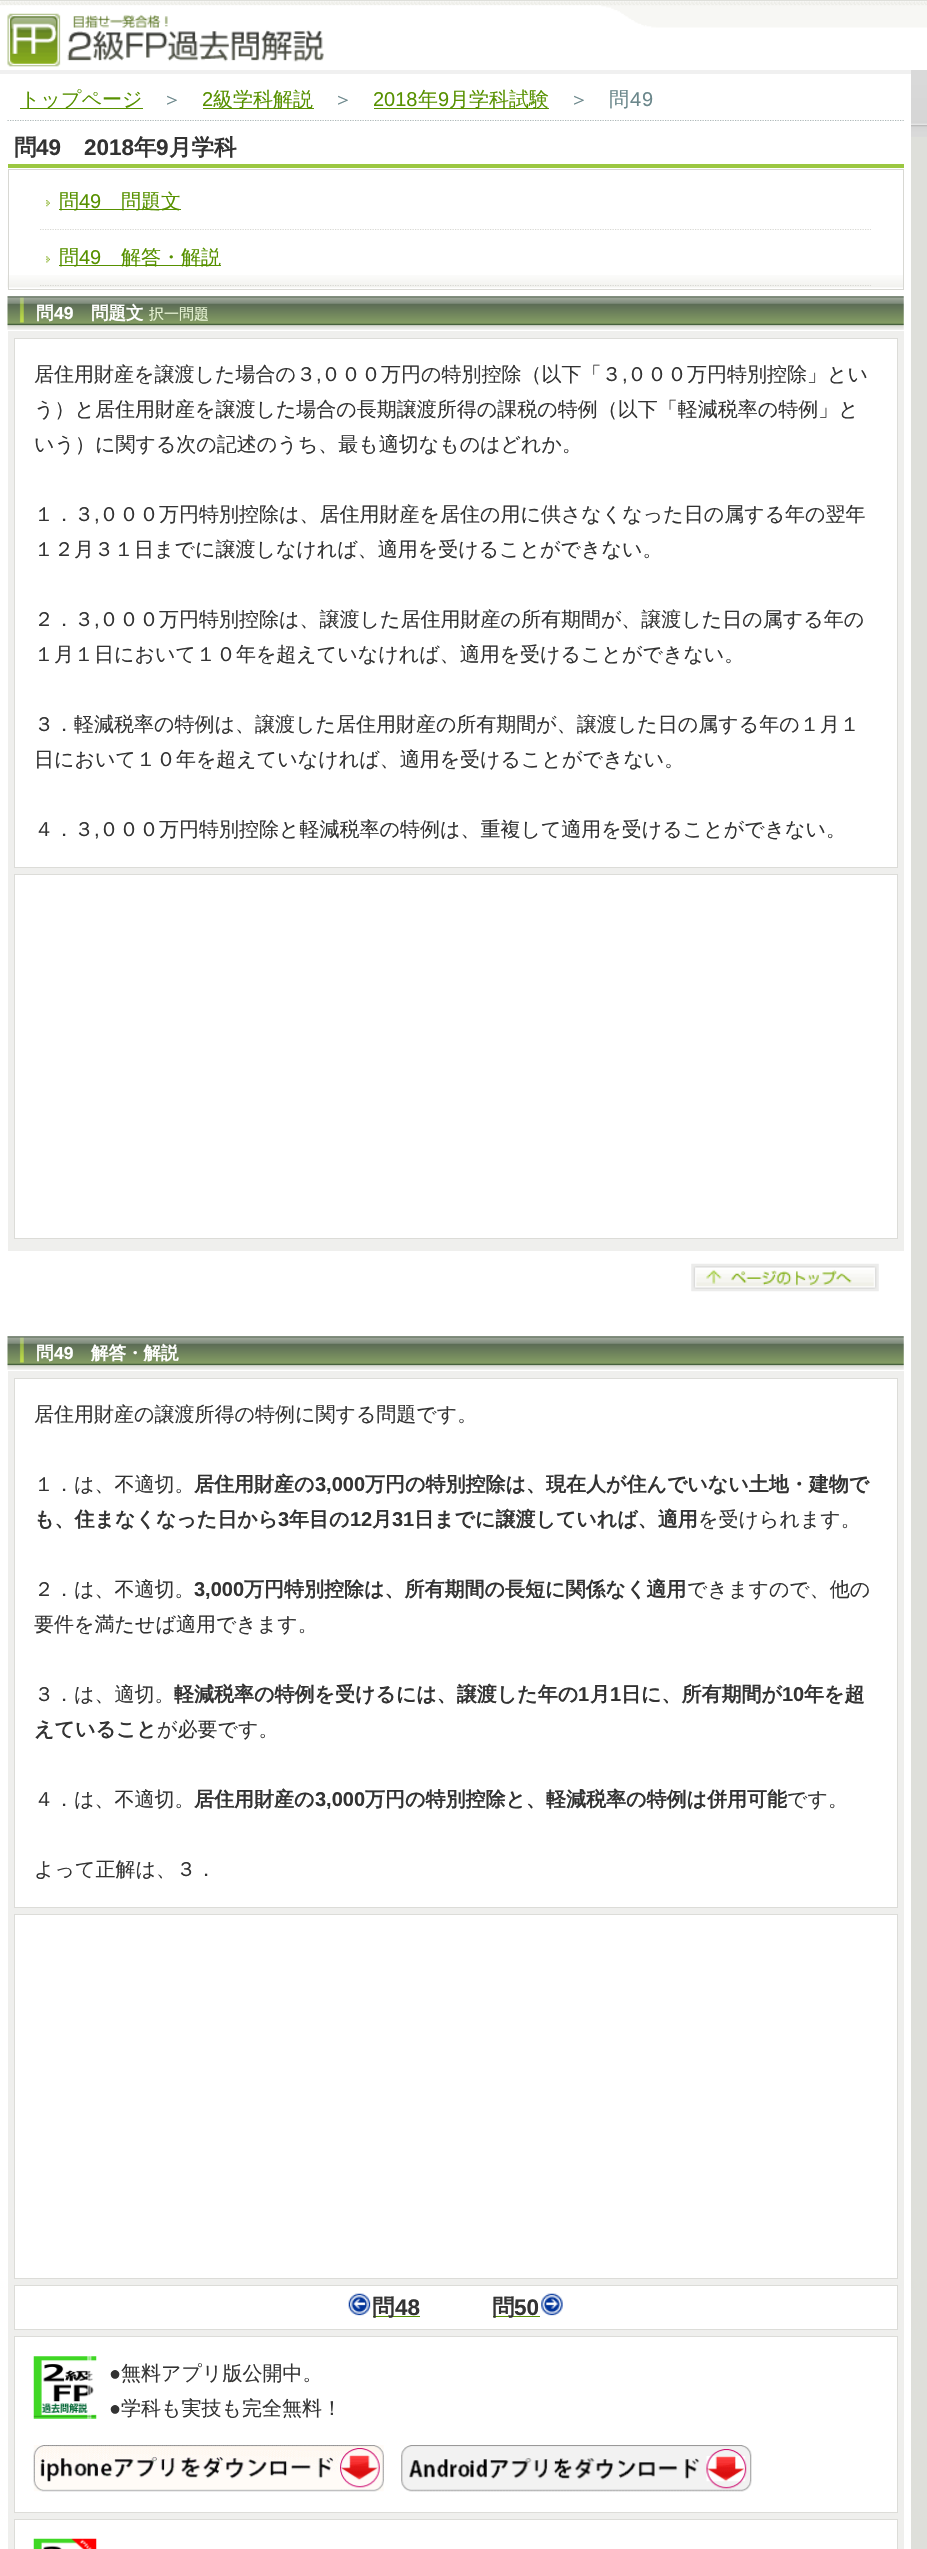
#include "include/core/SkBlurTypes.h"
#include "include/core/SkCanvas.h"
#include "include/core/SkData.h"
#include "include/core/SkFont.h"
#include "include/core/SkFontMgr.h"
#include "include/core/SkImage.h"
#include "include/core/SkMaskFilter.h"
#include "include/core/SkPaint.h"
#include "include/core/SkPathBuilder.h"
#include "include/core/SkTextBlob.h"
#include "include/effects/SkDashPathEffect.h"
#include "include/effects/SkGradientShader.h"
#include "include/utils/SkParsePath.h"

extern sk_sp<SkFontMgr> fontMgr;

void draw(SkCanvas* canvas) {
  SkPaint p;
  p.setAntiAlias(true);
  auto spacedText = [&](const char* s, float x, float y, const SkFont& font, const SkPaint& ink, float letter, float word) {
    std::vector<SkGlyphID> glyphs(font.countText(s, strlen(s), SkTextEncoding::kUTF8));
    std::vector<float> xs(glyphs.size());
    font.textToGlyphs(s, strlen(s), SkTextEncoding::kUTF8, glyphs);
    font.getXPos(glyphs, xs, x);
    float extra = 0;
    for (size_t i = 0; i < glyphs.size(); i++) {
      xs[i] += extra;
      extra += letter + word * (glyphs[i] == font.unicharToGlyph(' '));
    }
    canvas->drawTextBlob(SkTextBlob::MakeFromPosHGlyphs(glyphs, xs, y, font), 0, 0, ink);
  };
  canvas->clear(SkColorSetRGB(222, 223, 218));
  canvas->drawImageRect(SkImages::DeferredFromEncodedData(SkData::MakeFromFileName("images/1.png")), SkRect::MakeLTRB(911, 70, 927, 137), SkSamplingOptions());
  p.setColor(SK_ColorWHITE);
  canvas->drawRect(SkRect::MakeLTRB(0, 1, 927, 70), p);
  canvas->drawImageRect(SkImages::DeferredFromEncodedData(SkData::MakeFromFileName("images/2.png")), SkRect::MakeLTRB(0, 1, 927, 28), SkSamplingOptions());
  canvas->drawImageRect(SkImages::DeferredFromEncodedData(SkData::MakeFromFileName("images/3.png")), SkRect::MakeLTRB(7, 13, 324, 67), SkSamplingOptions());
  canvas->drawRect(SkRect::MakeLTRB(0, 74, 911, 2549), p);
  p.setColor(SkColorSetRGB(240, 240, 240));
  canvas->drawRect(SkRect::MakeLTRB(0, 70, 911, 74), p);
  p.setStyle(SkPaint::kStroke_Style);
  p.setStrokeWidth(1.2f);
  p.setColor(SkColorSetRGB(174, 184, 184));
  p.setPathEffect(SkDashPathEffect::Make({{1.25f, 1.25f}}, 0));
  canvas->drawPath(SkPathBuilder().moveTo(7.5f, 120.5f).lineTo(904, 120.5f).detach(), p);
  p.setPathEffect(nullptr);
  p.setStyle(SkPaint::kFill_Style);
  p.setColor(SkColorSetRGB(87, 145, 0));
  canvas->drawRect(SkRect::MakeLTRB(20, 108, 143, 109), p);
  canvas->drawRect(SkRect::MakeLTRB(203, 108, 314, 109), p);
  canvas->drawRect(SkRect::MakeLTRB(374, 108, 549, 109), p);
  p.setColor(SkColorSetRGB(155, 199, 65));
  canvas->drawRect(SkRect::MakeLTRB(8, 164, 904, 168), p);
  canvas->drawImageRect(SkImages::DeferredFromEncodedData(SkData::MakeFromFileName("images/4.png")), SkRect::MakeLTRB(7, 275, 903, 288), SkSamplingOptions());
  p.setStyle(SkPaint::kStroke_Style);
  p.setStrokeWidth(1);
  p.setColor(SkColorSetRGB(216, 216, 211));
  canvas->drawRect(SkRect::MakeLTRB(8.5f, 169.5f, 903.5f, 289.5f), p);
  canvas->drawImageRect(SkImages::DeferredFromEncodedData(SkData::MakeFromFileName("images/5.png")), SkRect::MakeLTRB(46, 200, 50, 207), SkSamplingOptions());
  p.setStrokeWidth(1.2f);
  p.setPathEffect(SkDashPathEffect::Make({{1.25f, 1.25f}}, 0));
  canvas->drawPath(SkPathBuilder().moveTo(40, 229.5f).lineTo(871, 229.5f).detach(), p);
  p.setPathEffect(nullptr);
  p.setStyle(SkPaint::kFill_Style);
  p.setColor(SkColorSetRGB(87, 145, 0));
  canvas->drawRect(SkRect::MakeLTRB(59, 209, 181, 210), p);
  canvas->drawImageRect(SkImages::DeferredFromEncodedData(SkData::MakeFromFileName("images/6.png")), SkRect::MakeLTRB(46, 256, 50, 263), SkSamplingOptions());
  p.setStyle(SkPaint::kStroke_Style);
  p.setColor(SkColorSetRGB(216, 216, 211));
  p.setPathEffect(SkDashPathEffect::Make({{1.25f, 1.25f}}, 0));
  canvas->drawPath(SkPathBuilder().moveTo(40, 285.5f).lineTo(871, 285.5f).detach(), p);
  p.setPathEffect(nullptr);
  p.setStyle(SkPaint::kFill_Style);
  p.setColor(SkColorSetRGB(87, 145, 0));
  canvas->drawRect(SkRect::MakeLTRB(59, 265, 221, 266), p);
  canvas->drawImageRect(SkImages::DeferredFromEncodedData(SkData::MakeFromFileName("images/7.png")), SkRect::MakeLTRB(7, 296, 904, 330), SkSamplingOptions());
  p.setColor(SkColorSetRGB(239, 239, 237));
  canvas->drawRect(SkRect::MakeLTRB(8, 331, 904, 1251), p);
  p.setColor(SK_ColorWHITE);
  canvas->drawRect(SkRect::MakeLTRB(14.5f, 338.5f, 897.5f, 867.5f), p);
  p.setStyle(SkPaint::kStroke_Style);
  p.setStrokeWidth(1);
  p.setColor(SkColorSetRGB(220, 220, 216));
  canvas->drawRect(SkRect::MakeLTRB(14.5f, 338.5f, 897.5f, 867.5f), p);
  p.setStyle(SkPaint::kFill_Style);
  p.setColor(SK_ColorWHITE);
  canvas->drawRect(SkRect::MakeLTRB(14.5f, 874.5f, 897.5f, 1238.5f), p);
  p.setStyle(SkPaint::kStroke_Style);
  p.setColor(SkColorSetRGB(220, 220, 216));
  canvas->drawRect(SkRect::MakeLTRB(14.5f, 874.5f, 897.5f, 1238.5f), p);
  canvas->drawImageRect(SkImages::DeferredFromEncodedData(SkData::MakeFromFileName("images/8.png")), SkRect::MakeLTRB(691, 1263, 879, 1292), SkSamplingOptions());
  canvas->drawImageRect(SkImages::DeferredFromEncodedData(SkData::MakeFromFileName("images/7.png")), SkRect::MakeLTRB(7, 1336, 904, 1370), SkSamplingOptions());
  p.setStyle(SkPaint::kFill_Style);
  p.setColor(SkColorSetRGB(239, 239, 237));
  canvas->drawRect(SkRect::MakeLTRB(8, 1371, 904, 2549), p);
  p.setColor(SK_ColorWHITE);
  canvas->drawRect(SkRect::MakeLTRB(14.5f, 1378.5f, 897.5f, 1907.5f), p);
  p.setStyle(SkPaint::kStroke_Style);
  p.setColor(SkColorSetRGB(220, 220, 216));
  canvas->drawRect(SkRect::MakeLTRB(14.5f, 1378.5f, 897.5f, 1907.5f), p);
  p.setStyle(SkPaint::kFill_Style);
  p.setColor(SK_ColorWHITE);
  canvas->drawRect(SkRect::MakeLTRB(14.5f, 1914.5f, 897.5f, 2278.5f), p);
  p.setStyle(SkPaint::kStroke_Style);
  p.setColor(SkColorSetRGB(220, 220, 216));
  canvas->drawRect(SkRect::MakeLTRB(14.5f, 1914.5f, 897.5f, 2278.5f), p);
  p.setStyle(SkPaint::kFill_Style);
  p.setColor(SK_ColorWHITE);
  canvas->drawRect(SkRect::MakeLTRB(14.5f, 2285.5f, 897.5f, 2329.5f), p);
  p.setStyle(SkPaint::kStroke_Style);
  p.setColor(SkColorSetRGB(220, 220, 216));
  canvas->drawRect(SkRect::MakeLTRB(14.5f, 2285.5f, 897.5f, 2329.5f), p);
  canvas->drawImageRect(SkImages::DeferredFromEncodedData(SkData::MakeFromFileName("images/9.png")), SkRect::MakeLTRB(348, 2293, 371, 2316), SkSamplingOptions());
  p.setStyle(SkPaint::kFill_Style);
  p.setColor(SkColorSetRGB(87, 145, 0));
  canvas->drawRect(SkRect::MakeLTRB(373, 2316, 420, 2317), p);
  canvas->drawRect(SkRect::MakeLTRB(493, 2316, 540, 2317), p);
  canvas->drawImageRect(SkImages::DeferredFromEncodedData(SkData::MakeFromFileName("images/10.png")), SkRect::MakeLTRB(541, 2293, 563, 2316), SkSamplingOptions());
  p.setColor(SK_ColorWHITE);
  canvas->drawRect(SkRect::MakeLTRB(14.5f, 2336.5f, 897.5f, 2512.5f), p);
  p.setStyle(SkPaint::kStroke_Style);
  p.setColor(SkColorSetRGB(220, 220, 216));
  canvas->drawRect(SkRect::MakeLTRB(14.5f, 2336.5f, 897.5f, 2512.5f), p);
  canvas->drawImageRect(SkImages::DeferredFromEncodedData(SkData::MakeFromFileName("images/11.png")), SkRect::MakeLTRB(33, 2356, 97, 2419), SkSamplingOptions());
  canvas->drawImageRect(SkImages::DeferredFromEncodedData(SkData::MakeFromFileName("images/12.png")), SkRect::MakeLTRB(33, 2445, 384, 2492), SkSamplingOptions());
  canvas->drawImageRect(SkImages::DeferredFromEncodedData(SkData::MakeFromFileName("images/13.png")), SkRect::MakeLTRB(401, 2445, 752, 2492), SkSamplingOptions());
  p.setStyle(SkPaint::kFill_Style);
  p.setColor(SK_ColorWHITE);
  canvas->drawRect(SkRect::MakeLTRB(14.5f, 2519.5f, 897.5f, 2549.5f), p);
  p.setStyle(SkPaint::kStroke_Style);
  p.setColor(SkColorSetRGB(220, 220, 216));
  canvas->drawRect(SkRect::MakeLTRB(14.5f, 2519.5f, 897.5f, 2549.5f), p);
  canvas->drawImageRect(SkImages::DeferredFromEncodedData(SkData::MakeFromFileName("images/14.png")), SkRect::MakeLTRB(33, 2538, 97, 2549), SkSamplingOptions());
  SkFont font1(fontMgr->matchFamilyStyle("WenQuanYi Zen Hei", SkFontStyle(500, SkFontStyle::kNormal_Width, SkFontStyle::kUpright_Slant)), 20);
  font1.setSubpixel(true);
  p.setStyle(SkPaint::kFill_Style);
  p.setColor(SkColorSetRGB(87, 145, 0));
  canvas->drawString("トップページ", 20, 106, font1, p);
  p.setColor(SkColorSetRGB(107, 135, 139));
  canvas->drawString("＞", 162, 106, font1, p);
  SkFont font2(fontMgr->matchFamilyStyle("Liberation Sans", SkFontStyle::Normal()), 20);
  font2.setSubpixel(true);
  p.setColor(SkColorSetRGB(87, 145, 0));
  canvas->drawString("2", 202, 106, font2, p);
  canvas->drawString("級学科解説", 213, 106, font1, p);
  p.setColor(SkColorSetRGB(107, 135, 139));
  canvas->drawString("＞", 333, 106, font1, p);
  p.setColor(SkColorSetRGB(87, 145, 0));
  canvas->drawString("2018", 373, 106, font2, p);
  canvas->drawString("年", 418, 106, font1, p);
  canvas->drawString("9", 438, 106, font2, p);
  canvas->drawString("月学科試験", 449, 106, font1, p);
  p.setColor(SkColorSetRGB(107, 135, 139));
  canvas->drawString("＞", 569, 106, font1, p);
  spacedText("問", 609, 106, font1, p, 1, 0);
  spacedText("49", 630, 106, font2, p, 1, 0);
  SkFont font3(fontMgr->matchFamilyStyle("WenQuanYi Zen Hei", SkFontStyle::Bold()), 22.5f);
  font3.setSubpixel(true);
  p.setColor(SkColorSetRGB(51, 51, 51));
  canvas->drawString("問", 14, 155, font3, p);
  SkFont font4(fontMgr->matchFamilyStyle("Liberation Sans", SkFontStyle::Bold()), 22.5f);
  font4.setSubpixel(true);
  canvas->drawString("49", 36, 155, font4, p);
  canvas->drawString("2018", 84, 155, font4, p);
  canvas->drawString("年", 134, 155, font3, p);
  canvas->drawString("9", 156, 155, font4, p);
  canvas->drawString("月学科", 169, 155, font3, p);
  p.setColor(SkColorSetRGB(87, 145, 0));
  canvas->drawString("問", 59, 208, font1, p);
  canvas->drawString("49", 79, 208, font2, p);
  canvas->drawString("問題文", 121, 208, font1, p);
  canvas->drawString("問", 59, 264, font1, p);
  canvas->drawString("49", 79, 264, font2, p);
  canvas->drawString("解答・解説", 121, 264, font1, p);
  SkFont font5(fontMgr->matchFamilyStyle("WenQuanYi Zen Hei", SkFontStyle::Bold()), 17.5f);
  font5.setSubpixel(true);
  p.setColor(SK_ColorWHITE);
  canvas->drawString("問", 36, 319, font5, p);
  SkFont font6(fontMgr->matchFamilyStyle("Liberation Sans", SkFontStyle::Bold()), 17.5f);
  font6.setSubpixel(true);
  canvas->drawString("49", 54, 319, font6, p);
  canvas->drawString("問題文", 91, 319, font5, p);
  SkFont font7(fontMgr->matchFamilyStyle("WenQuanYi Zen Hei", SkFontStyle(500, SkFontStyle::kNormal_Width, SkFontStyle::kUpright_Slant)), 15);
  font7.setSubpixel(true);
  p.setColor(SkColorSetRGB(232, 244, 213));
  canvas->drawString("択一問題", 149, 319, font7, p);
  p.setColor(SkColorSetRGB(51, 51, 51));
  canvas->drawString("居住用財産を譲渡した場合の３", 34, 381, font1, p);
  canvas->drawString(",", 316, 381, font2, p);
  canvas->drawString("０００万円の特別控除（以下「３", 321, 381, font1, p);
  canvas->drawString(",", 622, 381, font2, p);
  canvas->drawString("０００万円特別控除」とい", 627, 381, font1, p);
  canvas->drawString("う）と居住用財産を譲渡した場合の長期譲渡所得の課税の特例（以下「軽減税率の特例」と", 34, 416, font1, p);
  canvas->drawString("いう）に関する次の記述のうち、最も適切なものはどれか。", 34, 451, font1, p);
  canvas->drawString("１．３", 34, 521, font1, p);
  canvas->drawString(",", 94, 521, font2, p);
  canvas->drawString("０００万円特別控除は、居住用財産を居住の用に供さなくなった日の属する年の翌年", 99, 521, font1, p);
  canvas->drawString("１２月３１日までに譲渡しなければ、適用を受けることができない。", 34, 556, font1, p);
  canvas->drawString("２．３", 34, 626, font1, p);
  canvas->drawString(",", 94, 626, font2, p);
  canvas->drawString("０００万円特別控除は、譲渡した居住用財産の所有期間が、譲渡した日の属する年の", 99, 626, font1, p);
  canvas->drawString("１月１日において１０年を超えていなければ、適用を受けることができない。", 34, 661, font1, p);
  canvas->drawString("３．軽減税率の特例は、譲渡した居住用財産の所有期間が、譲渡した日の属する年の１月１", 34, 731, font1, p);
  canvas->drawString("日において１０年を超えていなければ、適用を受けることができない。", 34, 766, font1, p);
  canvas->drawString("４．３", 34, 836, font1, p);
  canvas->drawString(",", 94, 836, font2, p);
  canvas->drawString("０００万円特別控除と軽減税率の特例は、重複して適用を受けることができない。", 99, 836, font1, p);
  p.setColor(SK_ColorWHITE);
  canvas->drawString("問", 36, 1359, font5, p);
  canvas->drawString("49", 54, 1359, font6, p);
  canvas->drawString("解答・解説", 91, 1359, font5, p);
  p.setColor(SkColorSetRGB(51, 51, 51));
  canvas->drawString("居住用財産の譲渡所得の特例に関する問題です。", 34, 1421, font1, p);
  canvas->drawString("１．は、不適切。", 34, 1491, font1, p);
  SkFont font8(fontMgr->matchFamilyStyle("WenQuanYi Zen Hei", SkFontStyle::Bold()), 20);
  font8.setSubpixel(true);
  canvas->drawString("居住用財産の", 194, 1491, font8, p);
  SkFont font9(fontMgr->matchFamilyStyle("Liberation Sans", SkFontStyle::Bold()), 20);
  font9.setSubpixel(true);
  canvas->drawString("3,000", 315, 1491, font9, p);
  canvas->drawString("万円の特別控除は、現在人が住んでいない土地・建物で", 365, 1491, font8, p);
  canvas->drawString("も、住まなくなった日から", 34, 1526, font8, p);
  canvas->drawString("3", 278, 1526, font9, p);
  canvas->drawString("年目の", 289, 1526, font8, p);
  canvas->drawString("12", 350, 1526, font9, p);
  canvas->drawString("月", 372, 1526, font8, p);
  canvas->drawString("31", 392, 1526, font9, p);
  canvas->drawString("日までに譲渡していれば、適用", 414, 1526, font8, p);
  canvas->drawString("を受けられます。", 698, 1526, font1, p);
  canvas->drawString("２．は、不適切。", 34, 1596, font1, p);
  canvas->drawString("3,000", 194, 1596, font9, p);
  canvas->drawString("万円特別控除は、所有期間の長短に関係なく適用", 244, 1596, font8, p);
  canvas->drawString("できますので、他の", 687, 1596, font1, p);
  canvas->drawString("要件を満たせば適用できます。", 34, 1631, font1, p);
  canvas->drawString("３．は、適切。", 34, 1701, font1, p);
  canvas->drawString("軽減税率の特例を受けるには、譲渡した年の", 174, 1701, font8, p);
  canvas->drawString("1", 578, 1701, font9, p);
  canvas->drawString("月", 590, 1701, font8, p);
  canvas->drawString("1", 610, 1701, font9, p);
  canvas->drawString("日に、所有期間が", 621, 1701, font8, p);
  canvas->drawString("10", 782, 1701, font9, p);
  canvas->drawString("年を超", 804, 1701, font8, p);
  canvas->drawString("えていること", 34, 1736, font8, p);
  canvas->drawString("が必要です。", 157, 1736, font1, p);
  canvas->drawString("４．は、不適切。", 34, 1806, font1, p);
  canvas->drawString("居住用財産の", 194, 1806, font8, p);
  canvas->drawString("3,000", 315, 1806, font9, p);
  canvas->drawString("万円の特別控除と、軽減税率の特例は併用可能", 365, 1806, font8, p);
  canvas->drawString("です。", 787, 1806, font1, p);
  canvas->drawString("よって正解は、３．", 34, 1876, font1, p);
  canvas->drawString("問", 372, 2315, font3, p);
  canvas->drawString("48", 395, 2315, font4, p);
  canvas->drawString("問", 492, 2315, font3, p);
  canvas->drawString("50", 514, 2315, font4, p);
  canvas->drawString("●", 109, 2380, font2, p);
  canvas->drawString("無料アプリ版公開中。", 121, 2380, font1, p);
  canvas->drawString("●", 109, 2415, font2, p);
  canvas->drawString("学科も実技も完全無料！", 121, 2415, font1, p);
}
